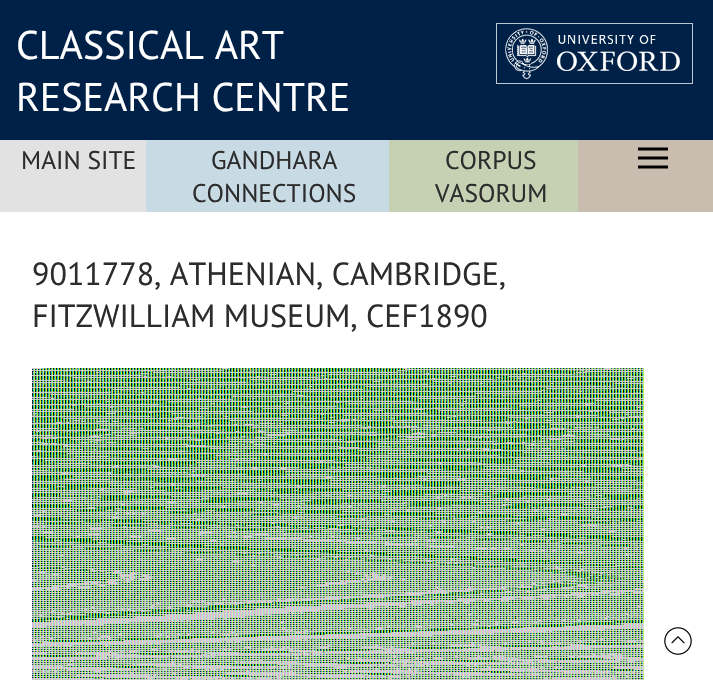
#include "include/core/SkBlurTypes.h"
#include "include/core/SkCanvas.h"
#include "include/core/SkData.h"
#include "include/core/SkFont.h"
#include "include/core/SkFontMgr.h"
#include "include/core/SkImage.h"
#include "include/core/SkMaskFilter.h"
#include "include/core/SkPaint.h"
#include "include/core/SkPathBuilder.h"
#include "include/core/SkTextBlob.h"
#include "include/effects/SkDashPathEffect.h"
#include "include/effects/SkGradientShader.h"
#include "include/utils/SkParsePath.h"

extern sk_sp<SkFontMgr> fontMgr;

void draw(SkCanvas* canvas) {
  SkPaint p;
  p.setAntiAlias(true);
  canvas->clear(SK_ColorWHITE);
  p.setColor(SkColorSetRGB(0, 33, 71));
  canvas->drawRect(SkRect::MakeLTRB(0, 0, 713, 140), p);
  canvas->drawImageRect(SkImages::DeferredFromEncodedData(SkData::MakeFromFileName("images/1.png")), SkRect::MakeLTRB(496, 23, 693, 84), SkSamplingOptions());
  p.setColor(SkColorSetRGB(226, 226, 226));
  canvas->drawRect(SkRect::MakeLTRB(0, 140, 146, 212), p);
  p.setColor(SkColorSetRGB(200, 219, 229));
  canvas->drawRect(SkRect::MakeLTRB(146, 140, 389, 212), p);
  p.setColor(SkColorSetRGB(197, 209, 178));
  canvas->drawRect(SkRect::MakeLTRB(389, 140, 578, 212), p);
  p.setColor(SkColorSetRGB(200, 189, 174));
  canvas->drawRect(SkRect::MakeLTRB(578, 140, 713, 212), p);
  canvas->drawImageRect(SkImages::DeferredFromEncodedData(SkData::MakeFromFileName("images/2.png")), SkRect::MakeLTRB(638, 147, 668, 169), SkSamplingOptions());
  canvas->drawImageRect(SkImages::DeferredFromEncodedData(SkData::MakeFromFileName("images/3.png")), SkRect::MakeLTRB(32, 368, 644, 680), SkSamplingOptions());
  canvas->drawImageRect(SkImages::DeferredFromEncodedData(SkData::MakeFromFileName("images/4.png")), SkRect::MakeLTRB(664, 627, 692, 655), SkSamplingOptions());
  SkFont font1(fontMgr->matchFamilyStyle("PT Sans", SkFontStyle::Normal()), 40);
  font1.setSubpixel(true);
  p.setColor(SK_ColorWHITE);
  canvas->drawString("CLASSICAL ART", 16, 59, font1, p);
  canvas->drawString("RESEARCH CENTRE", 16, 111, font1, p);
  SkFont font2(fontMgr->matchFamilyStyle("PT Sans", SkFontStyle::Normal()), 25.5f);
  font2.setSubpixel(true);
  p.setColor(SkColorSetRGB(44, 44, 44));
  canvas->drawString("MAIN SITE", 21, 169, font2, p);
  canvas->drawString("GANDHARA", 211, 169, font2, p);
  canvas->drawString("CONNECTIONS", 192, 202, font2, p);
  canvas->drawString("CORPUS", 445, 169, font2, p);
  canvas->drawString("VASORUM", 435, 202, font2, p);
  SkFont font3(fontMgr->matchFamilyStyle("PT Sans", SkFontStyle::Normal()), 32);
  font3.setSubpixel(true);
  canvas->drawString("9011778, ATHENIAN, CAMBRIDGE,", 32, 285, font3, p);
  canvas->drawString("FITZWILLIAM MUSEUM, CEF1890", 32, 327, font3, p);
}
